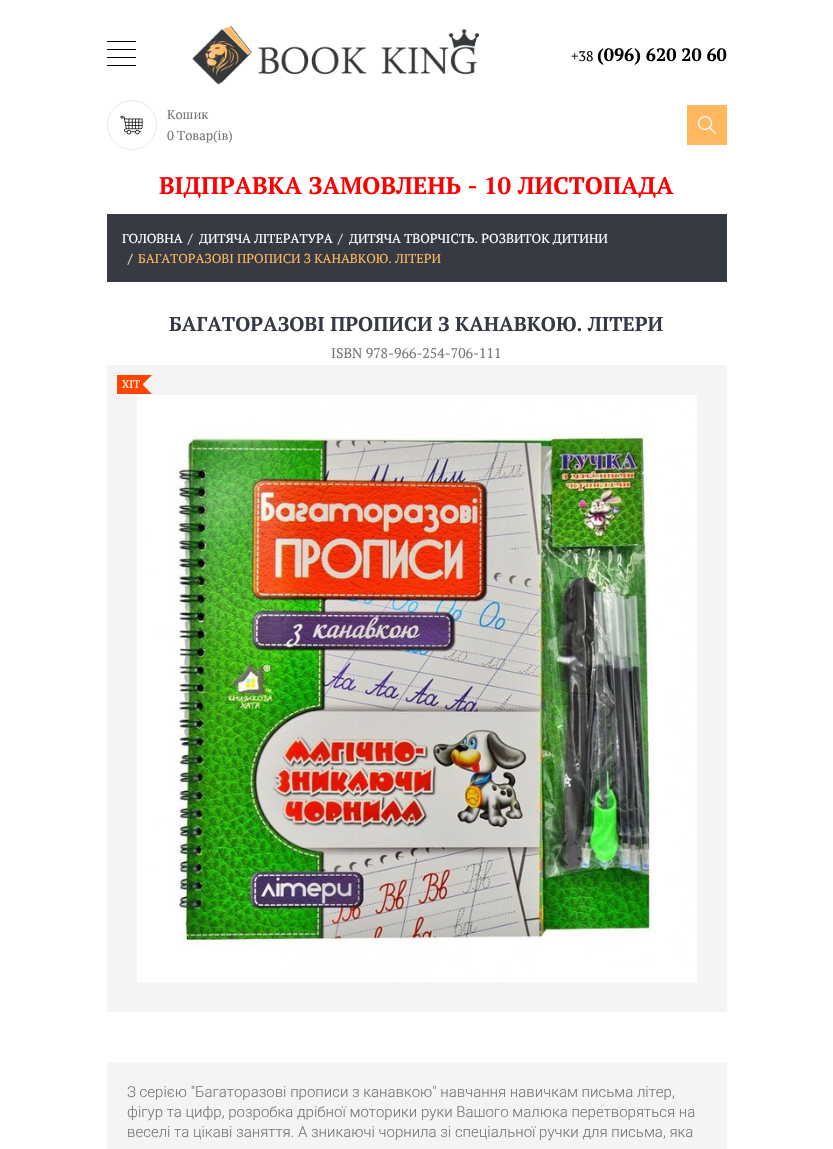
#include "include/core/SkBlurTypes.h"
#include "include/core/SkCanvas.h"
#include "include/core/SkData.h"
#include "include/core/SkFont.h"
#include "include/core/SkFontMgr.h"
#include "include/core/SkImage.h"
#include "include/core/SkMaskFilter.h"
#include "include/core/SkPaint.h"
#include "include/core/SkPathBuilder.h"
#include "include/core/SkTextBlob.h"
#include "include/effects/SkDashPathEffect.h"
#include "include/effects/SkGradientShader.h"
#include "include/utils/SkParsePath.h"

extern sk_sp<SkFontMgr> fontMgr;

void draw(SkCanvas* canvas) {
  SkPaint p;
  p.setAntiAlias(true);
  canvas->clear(SK_ColorWHITE);
  p.setColor(SK_ColorBLACK);
  canvas->drawRect(SkRect::MakeLTRB(107, 41, 136, 42), p);
  canvas->drawRect(SkRect::MakeLTRB(107, 49, 136, 50), p);
  canvas->drawRect(SkRect::MakeLTRB(107, 57, 136, 58), p);
  canvas->drawRect(SkRect::MakeLTRB(107, 65, 136, 66), p);
  canvas->drawImageRect(SkImages::DeferredFromEncodedData(SkData::MakeFromFileName("images/1.png")), SkRect::MakeLTRB(192, 25, 480, 85), SkSamplingOptions());
  p.setStyle(SkPaint::kStroke_Style);
  p.setStrokeWidth(1);
  p.setColor(SkColorSetRGB(231, 231, 231));
  canvas->drawCircle(132, 125, 24.5f, p);
  canvas->drawImageRect(SkImages::DeferredFromEncodedData(SkData::MakeFromFileName("images/2.png")), SkRect::MakeLTRB(120, 115, 143, 135), SkSamplingOptions());
  p.setStyle(SkPaint::kFill_Style);
  p.setColor(SkColorSetRGB(255, 184, 95));
  canvas->drawRect(SkRect::MakeLTRB(687, 105, 727, 145), p);
  canvas->drawImageRect(SkImages::DeferredFromEncodedData(SkData::MakeFromFileName("images/3.png")), SkRect::MakeLTRB(698, 116, 716, 134), SkSamplingOptions());
  p.setColor(SkColorSetRGB(54, 58, 66));
  canvas->drawRect(SkRect::MakeLTRB(107, 214, 727, 282), p);
  p.setColor(SkColorSetRGB(244, 244, 244));
  canvas->drawRect(SkRect::MakeLTRB(107, 365, 727, 1012), p);
  p.setColor(SkColorSetRGB(255, 69, 0));
  canvas->drawRect(SkRect::MakeLTRB(117, 375, 143, 394), p);
  canvas->drawPath(SkPathBuilder().moveTo(143, 375).lineTo(152, 375).lineTo(143, 384).close().moveTo(143, 394).lineTo(143, 385).lineTo(152, 394).close().detach(), p);
  canvas->drawImageRect(SkImages::DeferredFromEncodedData(SkData::MakeFromFileName("images/4.png")), SkRect::MakeLTRB(137, 395, 697, 982), SkSamplingOptions());
  p.setColor(SkColorSetRGB(244, 244, 244));
  canvas->drawRect(SkRect::MakeLTRB(107, 1062, 727, 1149), p);
  SkFont font1(fontMgr->matchFamilyStyle("PT Serif", SkFontStyle::Normal()), 14);
  font1.setSubpixel(true);
  p.setColor(SK_ColorBLACK);
  canvas->drawString("+38", 571, 61, font1, p);
  SkFont font2(fontMgr->matchFamilyStyle("PT Serif", SkFontStyle::Bold()), 18);
  font2.setSubpixel(true);
  canvas->drawString("(096) 620 20 60", 597, 61, font2, p);
  SkFont font3(fontMgr->matchFamilyStyle("PT Serif", SkFontStyle::Normal()), 13);
  font3.setSubpixel(true);
  p.setColor(SkColorSetRGB(119, 119, 119));
  canvas->drawString("Кошик", 167, 119, font3, p);
  canvas->drawString("0 Товар(ів)", 167, 140, font3, p);
  SkFont font4(fontMgr->matchFamilyStyle("PT Serif", SkFontStyle::Bold()), 24);
  font4.setSubpixel(true);
  p.setColor(SkColorSetRGB(255, 0, 0));
  canvas->drawString("ВІДПРАВКА ЗАМОВЛЕНЬ - 10 ЛИСТОПАДА", 159, 194, font4, p);
  p.setColor(SK_ColorWHITE);
  canvas->drawString("ГОЛОВНА", 122, 243, font3, p);
  canvas->drawString("/", 188, 243, font3, p);
  canvas->drawString("ДИТЯЧА ЛІТЕРАТУРА", 199, 243, font3, p);
  canvas->drawString("/", 338, 243, font3, p);
  canvas->drawString("ДИТЯЧА ТВОРЧІСТЬ. РОЗВИТОК ДИТИНИ", 349, 243, font3, p);
  canvas->drawString("/", 128, 263, font3, p);
  p.setColor(SkColorSetRGB(255, 184, 95));
  canvas->drawString("БАГАТОРАЗОВІ ПРОПИСИ З КАНАВКОЮ. ЛІТЕРИ", 138, 263, font3, p);
  SkFont font5(fontMgr->matchFamilyStyle("PT Serif", SkFontStyle::Bold()), 20);
  font5.setSubpixel(true);
  p.setColor(SkColorSetRGB(54, 58, 66));
  canvas->drawString("БАГАТОРАЗОВІ ПРОПИСИ З КАНАВКОЮ. ЛІТЕРИ", 169, 331, font5, p);
  p.setColor(SkColorSetRGB(119, 119, 119));
  canvas->drawString("ISBN 978-966-254-706-111", 331, 358, font1, p);
  SkFont font6(fontMgr->matchFamilyStyle("PT Serif", SkFontStyle::Normal()), 11);
  font6.setSubpixel(true);
  p.setColor(SK_ColorWHITE);
  canvas->drawString("ХІТ", 122, 388, font6, p);
  SkFont font7(fontMgr->matchFamilyStyle("Roboto", SkFontStyle(300, SkFontStyle::kNormal_Width, SkFontStyle::kUpright_Slant)), 15);
  font7.setSubpixel(true);
  p.setColor(SkColorSetRGB(119, 119, 119));
  canvas->drawString("З серією \"Багаторазові прописи з канавкою\" навчання навичкам письма літер,", 127, 1097, font7, p);
  canvas->drawString("фігур та цифр, розробка дрібної моторики руки Вашого малюка перетворяться на", 127, 1117, font7, p);
  canvas->drawString("веселі та цікаві заняття. А зникаючі чорнила зі спеціальної ручки для письма, яка", 127, 1137, font7, p);
}
